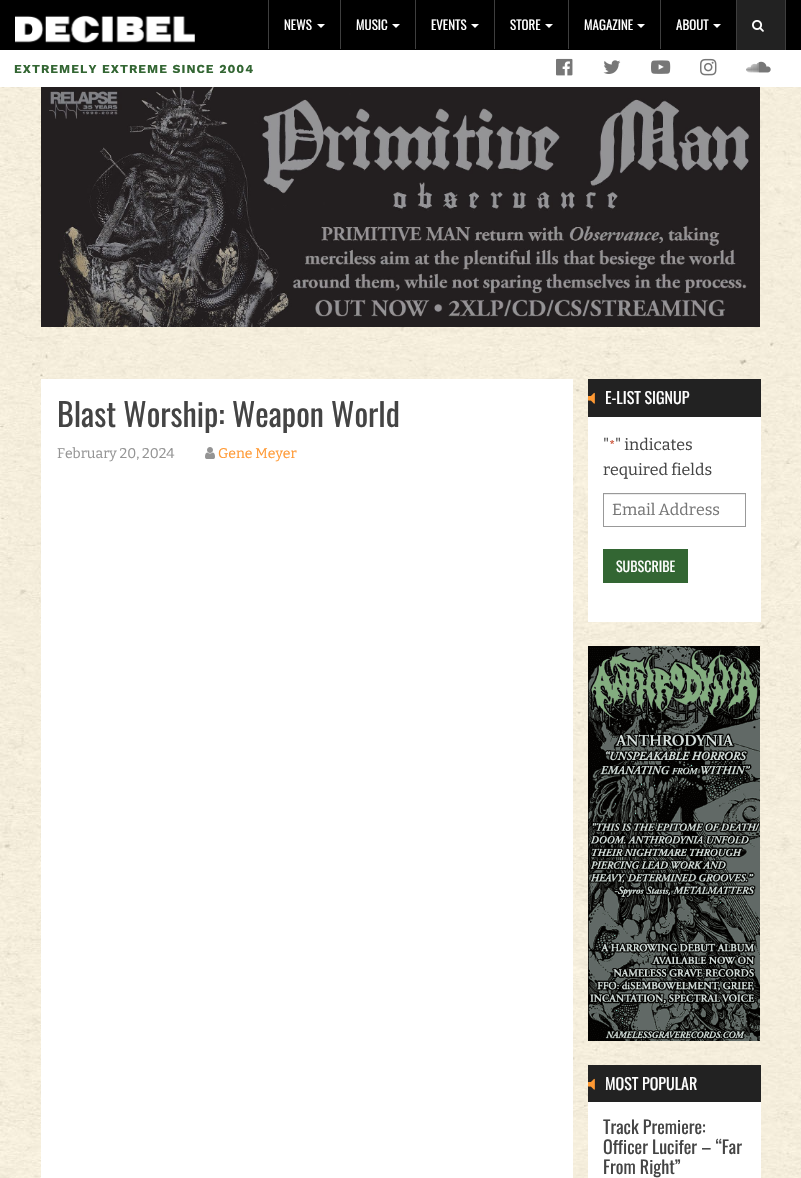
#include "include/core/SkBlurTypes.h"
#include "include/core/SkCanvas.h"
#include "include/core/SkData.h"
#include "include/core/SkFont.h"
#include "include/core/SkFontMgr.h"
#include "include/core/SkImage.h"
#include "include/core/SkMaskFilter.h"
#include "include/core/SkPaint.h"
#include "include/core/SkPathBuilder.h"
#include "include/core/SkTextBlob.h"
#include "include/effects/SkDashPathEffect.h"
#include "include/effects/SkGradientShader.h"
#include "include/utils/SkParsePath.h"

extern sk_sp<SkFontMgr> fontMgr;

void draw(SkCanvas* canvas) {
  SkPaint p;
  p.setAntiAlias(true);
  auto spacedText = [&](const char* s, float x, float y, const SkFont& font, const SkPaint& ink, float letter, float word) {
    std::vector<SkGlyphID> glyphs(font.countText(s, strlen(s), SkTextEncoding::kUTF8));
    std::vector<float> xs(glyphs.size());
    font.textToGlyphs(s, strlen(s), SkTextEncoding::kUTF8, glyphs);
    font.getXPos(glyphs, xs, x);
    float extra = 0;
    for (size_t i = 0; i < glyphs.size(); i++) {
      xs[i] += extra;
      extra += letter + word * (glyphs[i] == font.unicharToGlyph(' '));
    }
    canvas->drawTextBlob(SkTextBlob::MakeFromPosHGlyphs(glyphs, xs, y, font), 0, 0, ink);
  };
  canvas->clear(SK_ColorWHITE);
  canvas->drawImageRect(SkImages::DeferredFromEncodedData(SkData::MakeFromFileName("images/1.png")), SkRect::MakeLTRB(0, 87, 801, 1178), SkSamplingOptions());
  p.setColor(SK_ColorBLACK);
  canvas->drawRect(SkRect::MakeLTRB(0, 0, 801, 50), p);
  canvas->drawImageRect(SkImages::DeferredFromEncodedData(SkData::MakeFromFileName("images/2.png")), SkRect::MakeLTRB(15, 15, 195, 44), SkSamplingOptions());
  p.setColor(SkColorSetRGB(62, 62, 62));
  canvas->drawRect(SkRect::MakeLTRB(268, 0, 269, 49), p);
  p.setColor(SK_ColorWHITE);
  canvas->drawPath(SkPathBuilder().moveTo(317, 24).lineTo(325, 24).lineTo(321, 28).close().detach(), p);
  p.setColor(SkColorSetRGB(62, 62, 62));
  canvas->drawRect(SkRect::MakeLTRB(340, 0, 341, 49), p);
  p.setColor(SK_ColorWHITE);
  canvas->drawPath(SkPathBuilder().moveTo(392, 24).lineTo(400, 24).lineTo(396, 28).close().detach(), p);
  p.setColor(SkColorSetRGB(62, 62, 62));
  canvas->drawRect(SkRect::MakeLTRB(415, 0, 416, 49), p);
  p.setColor(SK_ColorWHITE);
  canvas->drawPath(SkPathBuilder().moveTo(471, 24).lineTo(479, 24).lineTo(475, 28).close().detach(), p);
  p.setColor(SkColorSetRGB(62, 62, 62));
  canvas->drawRect(SkRect::MakeLTRB(494, 0, 495, 49), p);
  p.setColor(SK_ColorWHITE);
  canvas->drawPath(SkPathBuilder().moveTo(545, 24).lineTo(553, 24).lineTo(549, 28).close().detach(), p);
  p.setColor(SkColorSetRGB(62, 62, 62));
  canvas->drawRect(SkRect::MakeLTRB(568, 0, 569, 49), p);
  p.setColor(SK_ColorWHITE);
  canvas->drawPath(SkPathBuilder().moveTo(637, 24).lineTo(645, 24).lineTo(641, 28).close().detach(), p);
  p.setColor(SkColorSetRGB(62, 62, 62));
  canvas->drawRect(SkRect::MakeLTRB(660, 0, 661, 49), p);
  p.setColor(SK_ColorWHITE);
  canvas->drawPath(SkPathBuilder().moveTo(713, 24).lineTo(721, 24).lineTo(717, 28).close().detach(), p);
  p.setColor(SkColorSetRGB(34, 34, 34));
  canvas->drawRect(SkRect::MakeLTRB(737, 0, 785, 50), p);
  p.setColor(SkColorSetRGB(62, 62, 62));
  canvas->drawRect(SkRect::MakeLTRB(785, 0, 786, 50), p);
  canvas->drawRect(SkRect::MakeLTRB(736, 0, 737, 50), p);
  canvas->drawImageRect(SkImages::DeferredFromEncodedData(SkData::MakeFromFileName("images/3.png")), SkRect::MakeLTRB(752, 20, 764, 32), SkSamplingOptions());
  canvas->drawImageRect(SkImages::DeferredFromEncodedData(SkData::MakeFromFileName("images/4.png")), SkRect::MakeLTRB(556, 58, 573, 76), SkSamplingOptions());
  canvas->drawImageRect(SkImages::DeferredFromEncodedData(SkData::MakeFromFileName("images/5.png")), SkRect::MakeLTRB(603, 60, 621, 74), SkSamplingOptions());
  canvas->drawImageRect(SkImages::DeferredFromEncodedData(SkData::MakeFromFileName("images/6.png")), SkRect::MakeLTRB(651, 60, 671, 74), SkSamplingOptions());
  canvas->drawImageRect(SkImages::DeferredFromEncodedData(SkData::MakeFromFileName("images/7.png")), SkRect::MakeLTRB(700, 58, 717, 76), SkSamplingOptions());
  canvas->drawImageRect(SkImages::DeferredFromEncodedData(SkData::MakeFromFileName("images/8.png")), SkRect::MakeLTRB(746, 61, 771, 73), SkSamplingOptions());
  canvas->drawImageRect(SkImages::DeferredFromEncodedData(SkData::MakeFromFileName("images/9.png")), SkRect::MakeLTRB(41, 87, 760, 327), SkSamplingOptions());
  p.setColor(SK_ColorWHITE);
  canvas->drawRect(SkRect::MakeLTRB(41, 379, 573, 1178), p);
  canvas->drawImageRect(SkImages::DeferredFromEncodedData(SkData::MakeFromFileName("images/10.png")), SkRect::MakeLTRB(205, 447, 215, 459), SkSamplingOptions());
  canvas->drawRect(SkRect::MakeLTRB(588, 417, 761, 622), p);
  p.setColor(SkColorSetRGB(34, 34, 34));
  canvas->drawRect(SkRect::MakeLTRB(588, 379, 761, 417), p);
  canvas->drawImageRect(SkImages::DeferredFromEncodedData(SkData::MakeFromFileName("images/11.png")), SkRect::MakeLTRB(588, 392, 595, 404), SkSamplingOptions());
  p.setColor(SkColorSetRGB(236, 236, 236));
  canvas->drawRect(SkRect::MakeLTRB(604, 494, 745, 495), p);
  p.setStyle(SkPaint::kStroke_Style);
  p.setStrokeWidth(1);
  p.setColor(SkColorSetRGB(153, 153, 153));
  canvas->drawRect(SkRect::MakeLTRB(603.5f, 493.5f, 745.5f, 526.5f), p);
  p.setStyle(SkPaint::kFill_Style);
  p.setColor(SkColorSetRGB(51, 102, 51));
  canvas->drawRect(SkRect::MakeLTRB(603, 549, 688, 583), p);
  canvas->drawImageRect(SkImages::DeferredFromEncodedData(SkData::MakeFromFileName("images/12.png")), SkRect::MakeLTRB(588, 646, 760, 1041), SkSamplingOptions());
  p.setColor(SK_ColorWHITE);
  canvas->drawRect(SkRect::MakeLTRB(588, 1102, 761, 1178), p);
  p.setColor(SkColorSetRGB(34, 34, 34));
  canvas->drawRect(SkRect::MakeLTRB(588, 1065, 761, 1102), p);
  canvas->drawImageRect(SkImages::DeferredFromEncodedData(SkData::MakeFromFileName("images/11.png")), SkRect::MakeLTRB(588, 1078, 595, 1090), SkSamplingOptions());
  SkFont font1(fontMgr->matchFamilyStyle("Oswald", SkFontStyle::Normal()), 13);
  font1.setSubpixel(true);
  p.setColor(SK_ColorWHITE);
  canvas->drawString("NEWS", 284, 30, font1, p);
  canvas->drawString("MUSIC", 356, 30, font1, p);
  canvas->drawString("EVENTS", 431, 30, font1, p);
  canvas->drawString("STORE", 510, 30, font1, p);
  canvas->drawString("MAGAZINE", 584, 30, font1, p);
  canvas->drawString("ABOUT", 676, 30, font1, p);
  SkFont font2(fontMgr->matchFamilyStyle("Work Sans", SkFontStyle::Bold()), 12.2f);
  font2.setSubpixel(true);
  p.setColor(SkColorSetRGB(51, 102, 51));
  spacedText("EXTREMELY EXTREME SINCE 2004", 14, 73, font2, p, 1.05f, 0);
  SkFont font3(fontMgr->matchFamilyStyle("Oswald", SkFontStyle::Normal()), 32);
  font3.setSubpixel(true);
  p.setColor(SkColorSetRGB(68, 68, 68));
  canvas->drawString("Blast Worship: Weapon World", 57, 427, font3, p);
  SkFont font4(fontMgr->matchFamilyStyle("Bitter", SkFontStyle::Normal()), 14);
  font4.setSubpixel(true);
  p.setColor(SkColorSetRGB(148, 148, 148));
  canvas->drawString("February 20, 2024", 57, 458, font4, p);
  p.setColor(SkColorSetRGB(255, 153, 51));
  canvas->drawString("Gene Meyer", 218, 458, font4, p);
  SkFont font5(fontMgr->matchFamilyStyle("Oswald", SkFontStyle::Normal()), 16);
  font5.setSubpixel(true);
  p.setColor(SK_ColorWHITE);
  canvas->drawString("E-LIST SIGNUP", 605, 404, font5, p);
  SkFont font6(fontMgr->matchFamilyStyle("Bitter", SkFontStyle::Normal()), 16);
  font6.setSubpixel(true);
  p.setColor(SkColorSetRGB(68, 68, 68));
  canvas->drawString("\"", 603, 450, font6, p);
  SkFont font7(fontMgr->matchFamilyStyle("Bitter", SkFontStyle::Normal()), 13);
  font7.setSubpixel(true);
  p.setColor(SkColorSetRGB(192, 43, 10));
  canvas->drawString("*", 609, 450, font7, p);
  p.setColor(SkColorSetRGB(68, 68, 68));
  canvas->drawString("\" indicates", 615, 450, font6, p);
  canvas->drawString("required fields", 603, 475, font6, p);
  p.setColor(SkColorSetRGB(117, 117, 117));
  canvas->drawString("Email Address", 612, 515, font6, p);
  SkFont font8(fontMgr->matchFamilyStyle("Oswald", SkFontStyle::Normal()), 14);
  font8.setSubpixel(true);
  p.setColor(SK_ColorWHITE);
  canvas->drawString("SUBSCRIBE", 616, 572, font8, p);
  canvas->drawString("MOST POPULAR", 605, 1090, font5, p);
  SkFont font9(fontMgr->matchFamilyStyle("Oswald", SkFontStyle::Normal()), 18);
  font9.setSubpixel(true);
  p.setColor(SkColorSetRGB(68, 68, 68));
  canvas->drawString("Track Premiere:", 603, 1134, font9, p);
  canvas->drawString("Officer Lucifer – “Far", 603, 1154, font9, p);
  canvas->drawString("From Right”", 603, 1174, font9, p);
}
